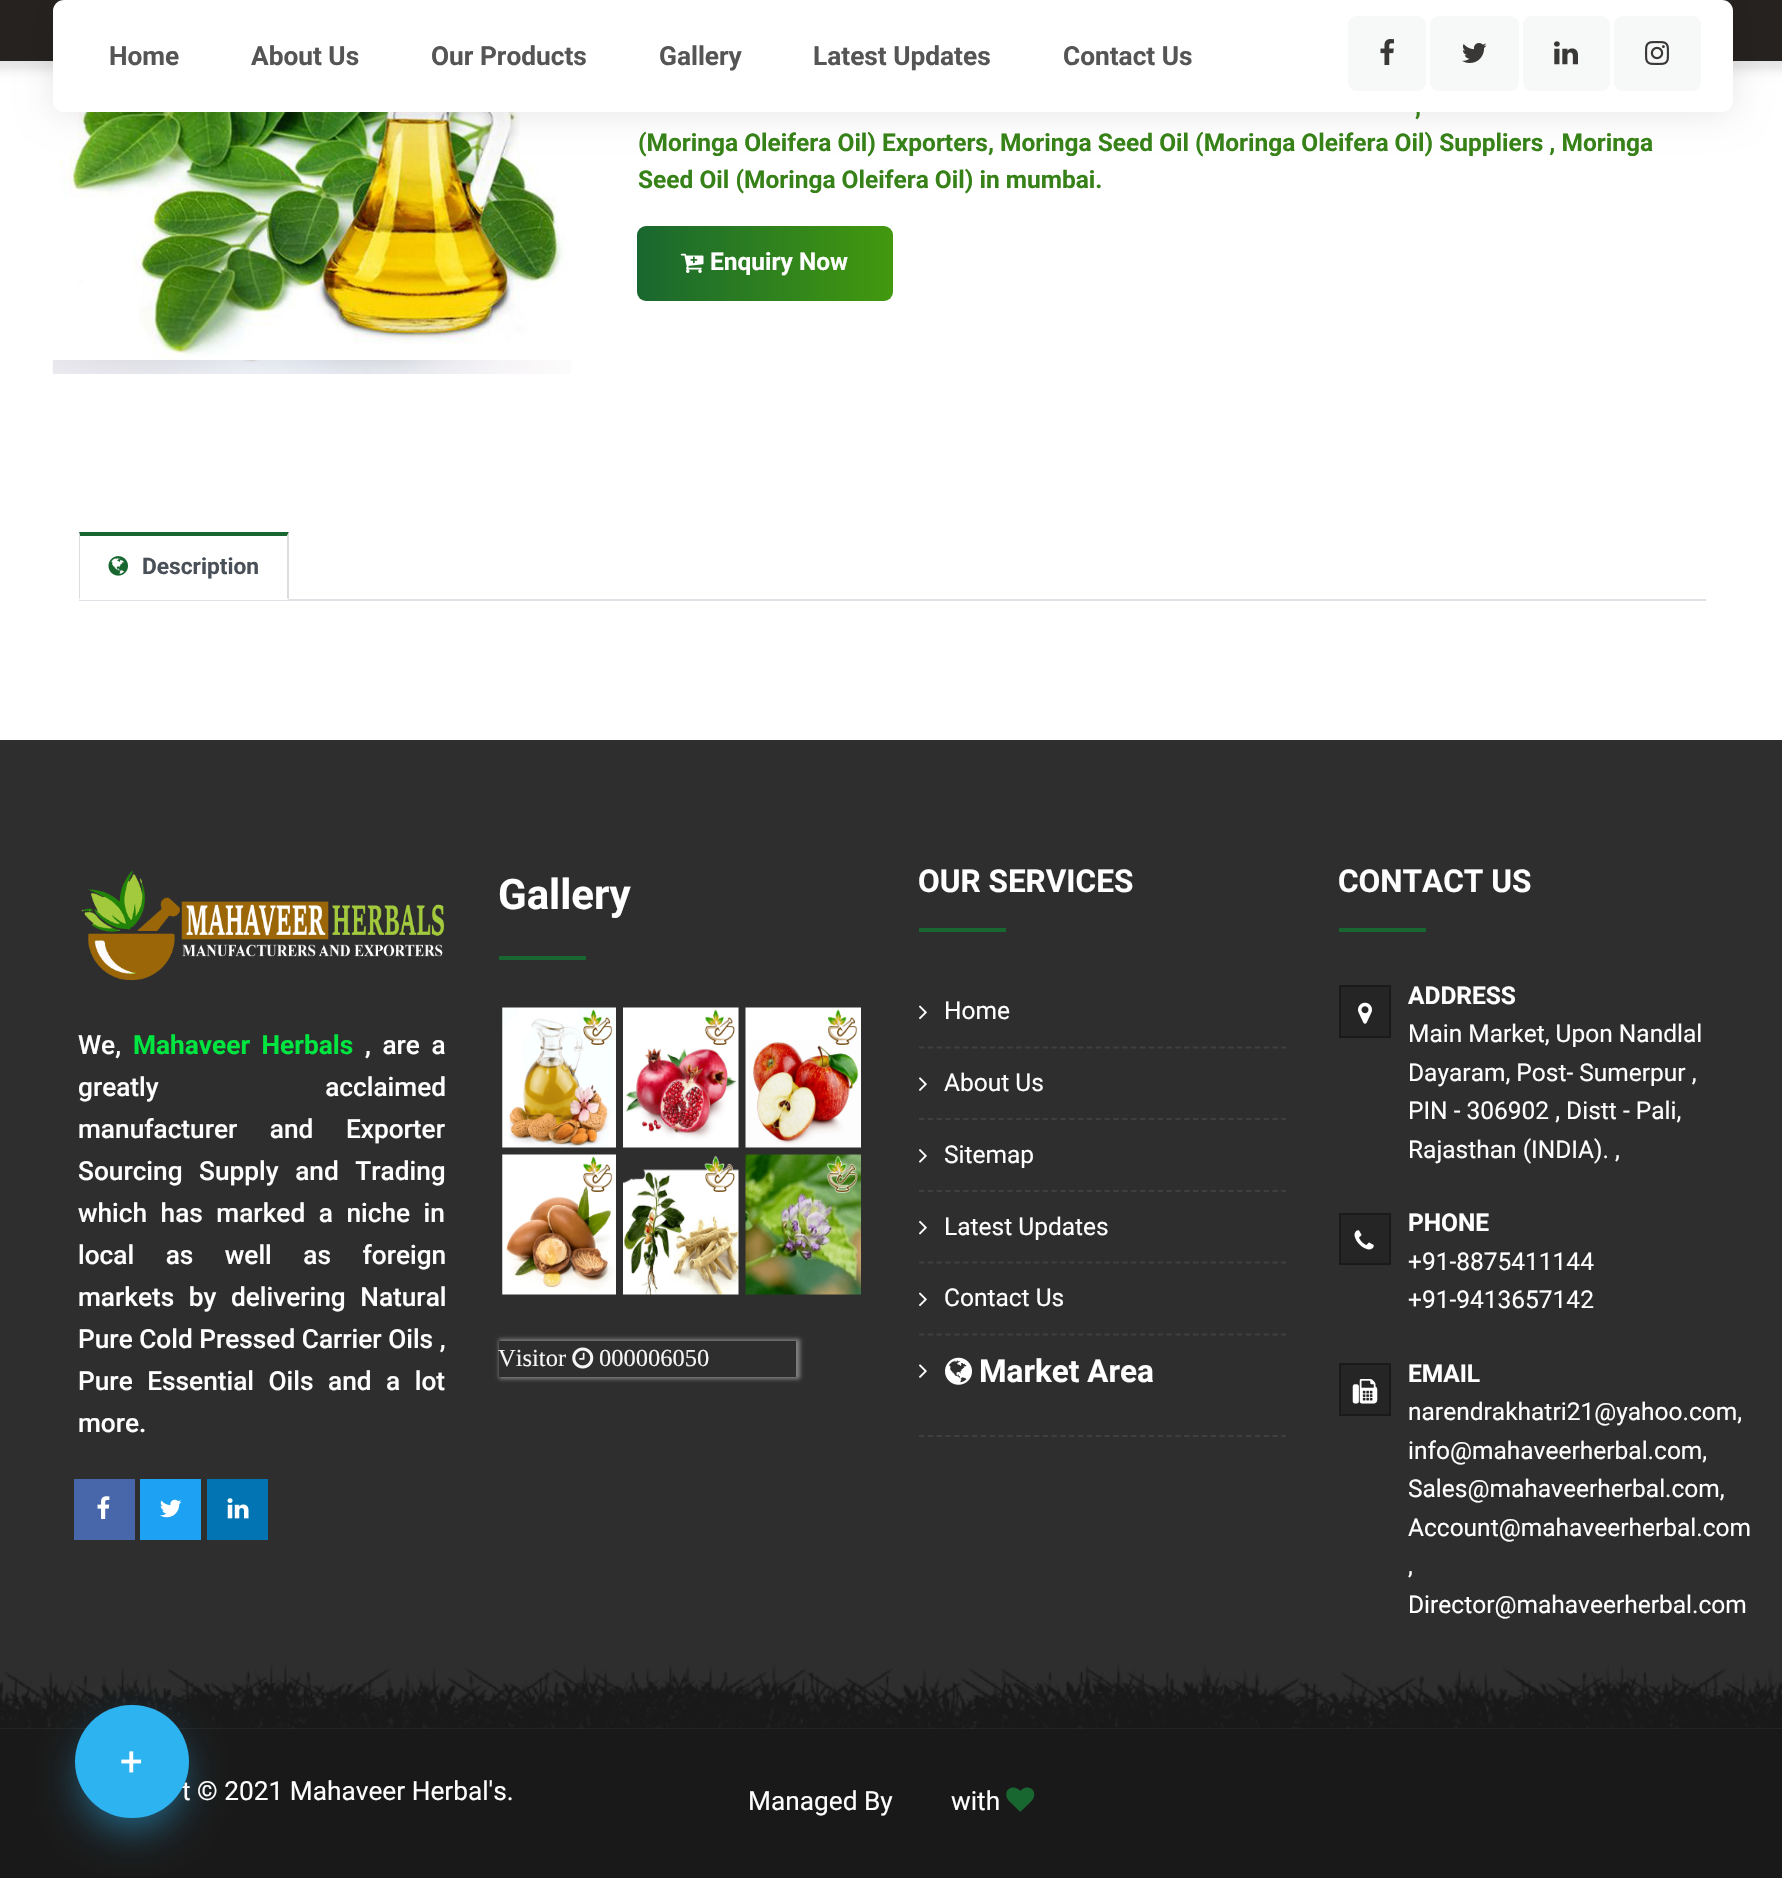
#include "include/core/SkBlurTypes.h"
#include "include/core/SkCanvas.h"
#include "include/core/SkData.h"
#include "include/core/SkFont.h"
#include "include/core/SkFontMgr.h"
#include "include/core/SkImage.h"
#include "include/core/SkMaskFilter.h"
#include "include/core/SkPaint.h"
#include "include/core/SkPathBuilder.h"
#include "include/core/SkTextBlob.h"
#include "include/effects/SkDashPathEffect.h"
#include "include/effects/SkGradientShader.h"
#include "include/utils/SkParsePath.h"

extern sk_sp<SkFontMgr> fontMgr;

void draw(SkCanvas* canvas) {
  SkPaint p;
  p.setAntiAlias(true);
  auto spacedText = [&](const char* s, float x, float y, const SkFont& font, const SkPaint& ink, float letter, float word) {
    std::vector<SkGlyphID> glyphs(font.countText(s, strlen(s), SkTextEncoding::kUTF8));
    std::vector<float> xs(glyphs.size());
    font.textToGlyphs(s, strlen(s), SkTextEncoding::kUTF8, glyphs);
    font.getXPos(glyphs, xs, x);
    float extra = 0;
    for (size_t i = 0; i < glyphs.size(); i++) {
      xs[i] += extra;
      extra += letter + word * (glyphs[i] == font.unicharToGlyph(' '));
    }
    canvas->drawTextBlob(SkTextBlob::MakeFromPosHGlyphs(glyphs, xs, y, font), 0, 0, ink);
  };
  canvas->clear(SK_ColorWHITE);
  canvas->drawImageRect(SkImages::DeferredFromEncodedData(SkData::MakeFromFileName("images/5.png")), SkRect::MakeLTRB(52, 61, 571, 374), SkSamplingOptions());
  p.setColor(SkColorSetARGB(26, 0, 0, 0));
  p.setMaskFilter(SkMaskFilter::MakeBlur(kNormal_SkBlurStyle, 4.5f));
  canvas->drawRect(SkRect::MakeLTRB(-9, -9, 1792, 70), p);
  p.setMaskFilter(nullptr);
  p.setColor(SkColorSetRGB(37, 34, 32));
  canvas->drawRect(SkRect::MakeLTRB(0, 0, 1782, 61), p);
  p.setColor(SkColorSetARGB(26, 0, 0, 0));
  p.setMaskFilter(SkMaskFilter::MakeBlur(kNormal_SkBlurStyle, 17.5f));
  canvas->drawRoundRect(SkRect::MakeLTRB(53, 0, 1733, 112), 11, 11, p);
  p.setMaskFilter(nullptr);
  p.setColor(SK_ColorWHITE);
  canvas->drawRoundRect(SkRect::MakeLTRB(53, 0, 1733, 112), 11, 11, p);
  p.setColor(SkColorSetRGB(246, 249, 247));
  canvas->drawRoundRect(SkRect::MakeLTRB(1348, 16, 1426, 91), 9, 9, p);
  canvas->drawImageRect(SkImages::DeferredFromEncodedData(SkData::MakeFromFileName("images/1.png")), SkRect::MakeLTRB(1380, 39, 1394, 65), SkSamplingOptions());
  canvas->drawRoundRect(SkRect::MakeLTRB(1430, 16, 1519, 91), 9, 9, p);
  canvas->drawImageRect(SkImages::DeferredFromEncodedData(SkData::MakeFromFileName("images/2.png")), SkRect::MakeLTRB(1462, 43, 1487, 63), SkSamplingOptions());
  canvas->drawRoundRect(SkRect::MakeLTRB(1523, 16, 1610, 91), 9, 9, p);
  canvas->drawImageRect(SkImages::DeferredFromEncodedData(SkData::MakeFromFileName("images/3.png")), SkRect::MakeLTRB(1554, 41, 1578, 65), SkSamplingOptions());
  canvas->drawRoundRect(SkRect::MakeLTRB(1614, 16, 1701, 91), 9, 9, p);
  canvas->drawImageRect(SkImages::DeferredFromEncodedData(SkData::MakeFromFileName("images/4.png")), SkRect::MakeLTRB(1645, 41, 1669, 65), SkSamplingOptions());
  {
    const SkColor colors[] = {SkColorSetRGB(25, 103, 48), SkColorSetRGB(67, 154, 13), SkColorSetRGB(25, 103, 48)};
    const float stops[] = {0, 0.51f, 1};
    const SkPoint ends[] = {{637, 263}, {1148, 263}};
    p.setShader(SkGradientShader::MakeLinear(ends, colors, stops, 3, SkTileMode::kClamp));
    p.setAlpha(255);
  }
  canvas->drawRoundRect(SkRect::MakeLTRB(637, 226, 893, 301), 9, 9, p);
  canvas->drawImageRect(SkImages::DeferredFromEncodedData(SkData::MakeFromFileName("images/6.png")), SkRect::MakeLTRB(680, 253, 704, 273), SkSamplingOptions());
  p.setShader(nullptr);
  p.setColor(SkColorSetRGB(222, 226, 230));
  canvas->drawRect(SkRect::MakeLTRB(79, 599, 1706, 601), p);
  p.setColor(SK_ColorWHITE);
  canvas->drawRect(SkRect::MakeLTRB(79, 599, 289, 600), p);
  p.setColor(SkColorSetRGB(25, 103, 48));
  canvas->drawPath(SkPathBuilder().moveTo(79, 532).lineTo(289, 532).lineTo(287, 536).lineTo(80, 536).close().detach(), p);
  p.setColor(SkColorSetRGB(221, 221, 221));
  canvas->drawPath(SkPathBuilder().moveTo(289, 532).lineTo(289, 600).lineTo(287, 598).lineTo(287, 536).close().detach(), p);
  canvas->drawPath(SkPathBuilder().moveTo(79, 600).lineTo(79, 532).lineTo(80, 536).lineTo(80, 598).close().detach(), p);
  canvas->drawImageRect(SkImages::DeferredFromEncodedData(SkData::MakeFromFileName("images/7.png")), SkRect::MakeLTRB(108, 556, 128, 576), SkSamplingOptions());
  p.setColor(SkColorSetRGB(46, 46, 46));
  canvas->drawRect(SkRect::MakeLTRB(0, 740, 1782, 1729), p);
  canvas->drawImageRect(SkImages::DeferredFromEncodedData(SkData::MakeFromFileName("images/8.png")), SkRect::MakeLTRB(0, 1665, 1782, 1729), SkSamplingOptions());
  canvas->drawImageRect(SkImages::DeferredFromEncodedData(SkData::MakeFromFileName("images/9.png")), SkRect::MakeLTRB(81, 871, 445, 981), SkSamplingOptions());
  p.setColor(SkColorSetRGB(72, 103, 170));
  canvas->drawRect(SkRect::MakeLTRB(74, 1479, 135, 1540), p);
  canvas->drawImageRect(SkImages::DeferredFromEncodedData(SkData::MakeFromFileName("images/10.png")), SkRect::MakeLTRB(97, 1496, 110, 1519), SkSamplingOptions());
  p.setColor(SkColorSetRGB(29, 161, 242));
  canvas->drawRect(SkRect::MakeLTRB(140, 1479, 201, 1540), p);
  canvas->drawImageRect(SkImages::DeferredFromEncodedData(SkData::MakeFromFileName("images/11.png")), SkRect::MakeLTRB(160, 1499, 182, 1518), SkSamplingOptions());
  p.setColor(SkColorSetRGB(2, 116, 179));
  canvas->drawRect(SkRect::MakeLTRB(207, 1479, 268, 1540), p);
  canvas->drawImageRect(SkImages::DeferredFromEncodedData(SkData::MakeFromFileName("images/12.png")), SkRect::MakeLTRB(227, 1498, 249, 1519), SkSamplingOptions());
  p.setColor(SkColorSetRGB(25, 103, 48));
  canvas->drawRect(SkRect::MakeLTRB(499, 956, 586, 960), p);
  canvas->drawImageRect(SkImages::DeferredFromEncodedData(SkData::MakeFromFileName("images/13.png")), SkRect::MakeLTRB(502, 1007, 616, 1148), SkSamplingOptions());
  canvas->drawImageRect(SkImages::DeferredFromEncodedData(SkData::MakeFromFileName("images/14.png")), SkRect::MakeLTRB(623, 1007, 739, 1148), SkSamplingOptions());
  canvas->drawImageRect(SkImages::DeferredFromEncodedData(SkData::MakeFromFileName("images/15.png")), SkRect::MakeLTRB(745, 1007, 861, 1148), SkSamplingOptions());
  canvas->drawImageRect(SkImages::DeferredFromEncodedData(SkData::MakeFromFileName("images/16.png")), SkRect::MakeLTRB(502, 1154, 616, 1295), SkSamplingOptions());
  canvas->drawImageRect(SkImages::DeferredFromEncodedData(SkData::MakeFromFileName("images/17.png")), SkRect::MakeLTRB(623, 1155, 739, 1295), SkSamplingOptions());
  canvas->drawImageRect(SkImages::DeferredFromEncodedData(SkData::MakeFromFileName("images/18.png")), SkRect::MakeLTRB(745, 1154, 861, 1295), SkSamplingOptions());
  canvas->save();
  canvas->clipPath(SkPathBuilder(SkPathFillType::kEvenOdd).moveTo(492, 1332).lineTo(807, 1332).lineTo(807, 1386).lineTo(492, 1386).close().moveTo(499, 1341).lineTo(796, 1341).lineTo(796, 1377).lineTo(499, 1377).close().detach(), true);
  p.setColor(SkColorSetRGB(128, 128, 128));
  p.setMaskFilter(SkMaskFilter::MakeBlur(kNormal_SkBlurStyle, 2));
  canvas->drawRect(SkRect::MakeLTRB(499, 1339, 800, 1379), p);
  p.setMaskFilter(nullptr);
  canvas->restore();
  canvas->drawImageRect(SkImages::DeferredFromEncodedData(SkData::MakeFromFileName("images/19.png")), SkRect::MakeLTRB(572, 1347, 594, 1369), SkSamplingOptions());
  p.setColor(SkColorSetRGB(25, 103, 48));
  canvas->drawRect(SkRect::MakeLTRB(919, 928, 1006, 932), p);
  p.setStyle(SkPaint::kStroke_Style);
  p.setStrokeWidth(1.8f);
  p.setColor(SkColorSetRGB(63, 63, 63));
  p.setPathEffect(SkDashPathEffect::Make({{5.25f, 3.59f}}, 0));
  canvas->drawPath(SkPathBuilder().moveTo(919, 1047.5f).lineTo(1286, 1047.5f).detach(), p);
  p.setPathEffect(nullptr);
  canvas->drawImageRect(SkImages::DeferredFromEncodedData(SkData::MakeFromFileName("images/20.png")), SkRect::MakeLTRB(919, 1005, 927, 1020), SkSamplingOptions());
  p.setPathEffect(SkDashPathEffect::Make({{5.25f, 3.59f}}, 0));
  canvas->drawPath(SkPathBuilder().moveTo(919, 1119).lineTo(1286, 1119).detach(), p);
  p.setPathEffect(nullptr);
  canvas->drawImageRect(SkImages::DeferredFromEncodedData(SkData::MakeFromFileName("images/21.png")), SkRect::MakeLTRB(919, 1077, 927, 1091), SkSamplingOptions());
  p.setPathEffect(SkDashPathEffect::Make({{5.25f, 3.59f}}, 0));
  canvas->drawPath(SkPathBuilder().moveTo(919, 1191).lineTo(1286, 1191).detach(), p);
  p.setPathEffect(nullptr);
  canvas->drawImageRect(SkImages::DeferredFromEncodedData(SkData::MakeFromFileName("images/22.png")), SkRect::MakeLTRB(919, 1149, 927, 1163), SkSamplingOptions());
  p.setPathEffect(SkDashPathEffect::Make({{5.25f, 3.59f}}, 0));
  canvas->drawPath(SkPathBuilder().moveTo(919, 1262.5f).lineTo(1286, 1262.5f).detach(), p);
  p.setPathEffect(nullptr);
  canvas->drawImageRect(SkImages::DeferredFromEncodedData(SkData::MakeFromFileName("images/23.png")), SkRect::MakeLTRB(919, 1220, 927, 1235), SkSamplingOptions());
  p.setPathEffect(SkDashPathEffect::Make({{5.25f, 3.59f}}, 0));
  canvas->drawPath(SkPathBuilder().moveTo(919, 1334.5f).lineTo(1286, 1334.5f).detach(), p);
  p.setPathEffect(nullptr);
  canvas->drawImageRect(SkImages::DeferredFromEncodedData(SkData::MakeFromFileName("images/20.png")), SkRect::MakeLTRB(919, 1292, 927, 1307), SkSamplingOptions());
  p.setPathEffect(SkDashPathEffect::Make({{5.25f, 3.59f}}, 0));
  canvas->drawPath(SkPathBuilder().moveTo(919, 1436).lineTo(1286, 1436).detach(), p);
  p.setPathEffect(nullptr);
  canvas->drawImageRect(SkImages::DeferredFromEncodedData(SkData::MakeFromFileName("images/21.png")), SkRect::MakeLTRB(919, 1364, 927, 1378), SkSamplingOptions());
  canvas->drawImageRect(SkImages::DeferredFromEncodedData(SkData::MakeFromFileName("images/24.png")), SkRect::MakeLTRB(945, 1357, 972, 1385), SkSamplingOptions());
  p.setStyle(SkPaint::kFill_Style);
  p.setColor(SkColorSetRGB(25, 103, 48));
  canvas->drawRect(SkRect::MakeLTRB(1339, 928, 1426, 932), p);
  p.setColor(SkColorSetRGB(37, 37, 37));
  canvas->drawRect(SkRect::MakeLTRB(1340, 986, 1390, 1037), p);
  p.setStyle(SkPaint::kStroke_Style);
  p.setStrokeWidth(2);
  p.setColor(SkColorSetRGB(26, 26, 26));
  canvas->drawRect(SkRect::MakeLTRB(1340, 986, 1390, 1037), p);
  canvas->drawImageRect(SkImages::DeferredFromEncodedData(SkData::MakeFromFileName("images/25.png")), SkRect::MakeLTRB(1358, 1002, 1372, 1024), SkSamplingOptions());
  p.setStyle(SkPaint::kFill_Style);
  p.setColor(SkColorSetRGB(37, 37, 37));
  canvas->drawRect(SkRect::MakeLTRB(1340, 1214, 1390, 1264), p);
  p.setStyle(SkPaint::kStroke_Style);
  p.setColor(SkColorSetRGB(26, 26, 26));
  canvas->drawRect(SkRect::MakeLTRB(1340, 1214, 1390, 1264), p);
  canvas->drawImageRect(SkImages::DeferredFromEncodedData(SkData::MakeFromFileName("images/26.png")), SkRect::MakeLTRB(1354, 1230, 1374, 1250), SkSamplingOptions());
  p.setStyle(SkPaint::kFill_Style);
  p.setColor(SkColorSetRGB(37, 37, 37));
  canvas->drawRect(SkRect::MakeLTRB(1340, 1364, 1390, 1415), p);
  p.setStyle(SkPaint::kStroke_Style);
  p.setColor(SkColorSetRGB(26, 26, 26));
  canvas->drawRect(SkRect::MakeLTRB(1340, 1364, 1390, 1415), p);
  canvas->drawImageRect(SkImages::DeferredFromEncodedData(SkData::MakeFromFileName("images/27.png")), SkRect::MakeLTRB(1352, 1379, 1378, 1404), SkSamplingOptions());
  p.setStyle(SkPaint::kFill_Style);
  p.setColor(SkColorSetRGB(25, 25, 25));
  canvas->drawRect(SkRect::MakeLTRB(0, 1729, 1782, 1878), p);
  p.setColor(SkColorSetARGB(153, 44, 179, 240));
  p.setMaskFilter(SkMaskFilter::MakeBlur(kNormal_SkBlurStyle, 22));
  canvas->drawRoundRect(SkRect::MakeLTRB(84, 1731, 180, 1827), 48, 48, p);
  p.setMaskFilter(nullptr);
  canvas->drawImageRect(SkImages::DeferredFromEncodedData(SkData::MakeFromFileName("images/28.png")), SkRect::MakeLTRB(1006, 1787, 1035, 1812), SkSamplingOptions());
  SkFont font1(fontMgr->matchFamilyStyle("Roboto", SkFontStyle::Bold()), 26.25f);
  font1.setSubpixel(true);
  p.setColor(SkColorSetRGB(85, 85, 85));
  canvas->drawString("Home", 109, 65, font1, p);
  canvas->drawString("About Us", 251, 65, font1, p);
  canvas->drawString("Our Products", 431, 65, font1, p);
  canvas->drawString("Gallery", 659, 65, font1, p);
  canvas->drawString("Latest Updates", 813, 65, font1, p);
  canvas->drawString("Contact Us", 1063, 65, font1, p);
  SkFont font2(fontMgr->matchFamilyStyle("Roboto", SkFontStyle::Bold()), 24.5f);
  font2.setSubpixel(true);
  p.setColor(SkColorSetRGB(55, 130, 24));
  canvas->drawString(",", 1415, 115, font2, p);
  canvas->drawString("(Moringa Oleifera Oil) Exporters, Moringa Seed Oil (Moringa Oleifera Oil) Suppliers , Moringa", 638, 151, font2, p);
  canvas->drawString("Seed Oil (Moringa Oleifera Oil) in mumbai.", 638, 188, font2, p);
  p.setColor(SK_ColorWHITE);
  canvas->drawString("Enquiry Now", 710, 270, font2, p);
  SkFont font3(fontMgr->matchFamilyStyle("Roboto", SkFontStyle::Bold()), 22.75f);
  font3.setSubpixel(true);
  p.setColor(SkColorSetRGB(73, 80, 87));
  canvas->drawString("Description", 142, 574, font3, p);
  SkFont font4(fontMgr->matchFamilyStyle("Roboto", SkFontStyle(500, SkFontStyle::kNormal_Width, SkFontStyle::kUpright_Slant)), 26.25f);
  font4.setSubpixel(true);
  p.setColor(SK_ColorWHITE);
  canvas->drawString("We,", 78, 1054, font4, p);
  p.setColor(SkColorSetRGB(0, 230, 64));
  spacedText("Mahaveer Herbals", 133, 1054, font1, p, 0, 5);
  p.setColor(SK_ColorWHITE);
  spacedText(", are a", 365, 1054, font4, p, 0, 5);
  spacedText("greatly acclaimed", 78, 1096, font4, p, 0, 160);
  spacedText("manufacturer and Exporter", 78, 1138, font4, p, 0, 26);
  spacedText("Sourcing Supply and Trading", 78, 1180, font4, p, 0, 10);
  spacedText("which has marked a niche in", 78, 1222, font4, p, 0, 7);
  spacedText("local as well as foreign", 78, 1264, font4, p, 0, 25);
  spacedText("markets by delivering Natural", 78, 1306, font4, p, 0, 8);
  canvas->drawString("Pure Cold Pressed Carrier Oils ,", 78, 1348, font4, p);
  spacedText("Pure Essential Oils", 78, 1390, font4, p, 0, 8);
  spacedText("and a lot", 328, 1390, font4, p, 0, 8);
  canvas->drawString("more.", 78, 1432, font4, p);
  SkFont font5(fontMgr->matchFamilyStyle("Roboto", SkFontStyle::Bold()), 42);
  font5.setSubpixel(true);
  canvas->drawString("Gallery", 498, 909, font5, p);
  SkFont font6(fontMgr->matchFamilyStyle("Liberation Serif", SkFontStyle::Normal()), 24.5f);
  font6.setSubpixel(true);
  p.setColor(SkColorSetRGB(245, 245, 245));
  canvas->drawString("Visitor", 498, 1366, font6, p);
  canvas->drawString("000006050", 599, 1366, font6, p);
  SkFont font7(fontMgr->matchFamilyStyle("Roboto", SkFontStyle::Bold()), 31.5f);
  font7.setSubpixel(true);
  p.setColor(SK_ColorWHITE);
  canvas->drawString("OUR SERVICES", 918, 892, font7, p);
  SkFont font8(fontMgr->matchFamilyStyle("Roboto", SkFontStyle::Normal()), 24.5f);
  font8.setSubpixel(true);
  canvas->drawString("Home", 944, 1019, font8, p);
  canvas->drawString("About Us", 944, 1091, font8, p);
  canvas->drawString("Sitemap", 944, 1163, font8, p);
  canvas->drawString("Latest Updates", 944, 1235, font8, p);
  canvas->drawString("Contact Us", 944, 1306, font8, p);
  canvas->drawString("Market Area", 979, 1382, font7, p);
  canvas->drawString("CONTACT US", 1338, 892, font7, p);
  canvas->drawString("ADDRESS", 1408, 1004, font2, p);
  canvas->drawString("Main Market, Upon Nandlal", 1408, 1042, font8, p);
  canvas->drawString("Dayaram, Post- Sumerpur ,", 1408, 1081, font8, p);
  canvas->drawString("PIN - 306902 , Distt - Pali,", 1408, 1119, font8, p);
  canvas->drawString("Rajasthan (INDIA). ,", 1408, 1158, font8, p);
  canvas->drawString("PHONE", 1408, 1231, font2, p);
  canvas->drawString("+91-8875411144", 1408, 1270, font8, p);
  canvas->drawString("+91-9413657142", 1408, 1308, font8, p);
  canvas->drawString("EMAIL", 1408, 1382, font2, p);
  canvas->drawString("narendrakhatri21@yahoo.com,", 1408, 1420, font8, p);
  canvas->drawString("info@mahaveerherbal.com,", 1408, 1459, font8, p);
  canvas->drawString("Sales@mahaveerherbal.com,", 1408, 1497, font8, p);
  canvas->drawString("Account@mahaveerherbal.com", 1408, 1536, font8, p);
  canvas->drawString(",", 1408, 1574, font8, p);
  canvas->drawString("Director@mahaveerherbal.com", 1408, 1613, font8, p);
  SkFont font9(fontMgr->matchFamilyStyle("Roboto", SkFontStyle::Normal()), 26.25f);
  font9.setSubpixel(true);
  canvas->drawString("t © 2021 Mahaveer Herbal's.", 182, 1800, font9, p);
  p.setColor(SkColorSetRGB(44, 179, 240));
  canvas->drawRoundRect(SkRect::MakeLTRB(75, 1705, 189, 1818), 56.5f, 56.5f, p);
  SkFont font10(fontMgr->matchFamilyStyle("Roboto", SkFontStyle::Normal()), 40);
  font10.setSubpixel(true);
  p.setColor(SK_ColorWHITE);
  canvas->drawString("+", 120, 1775, font10, p);
  canvas->drawString("Managed By", 748, 1810, font9, p);
  canvas->drawString("with", 951, 1810, font9, p);
}
